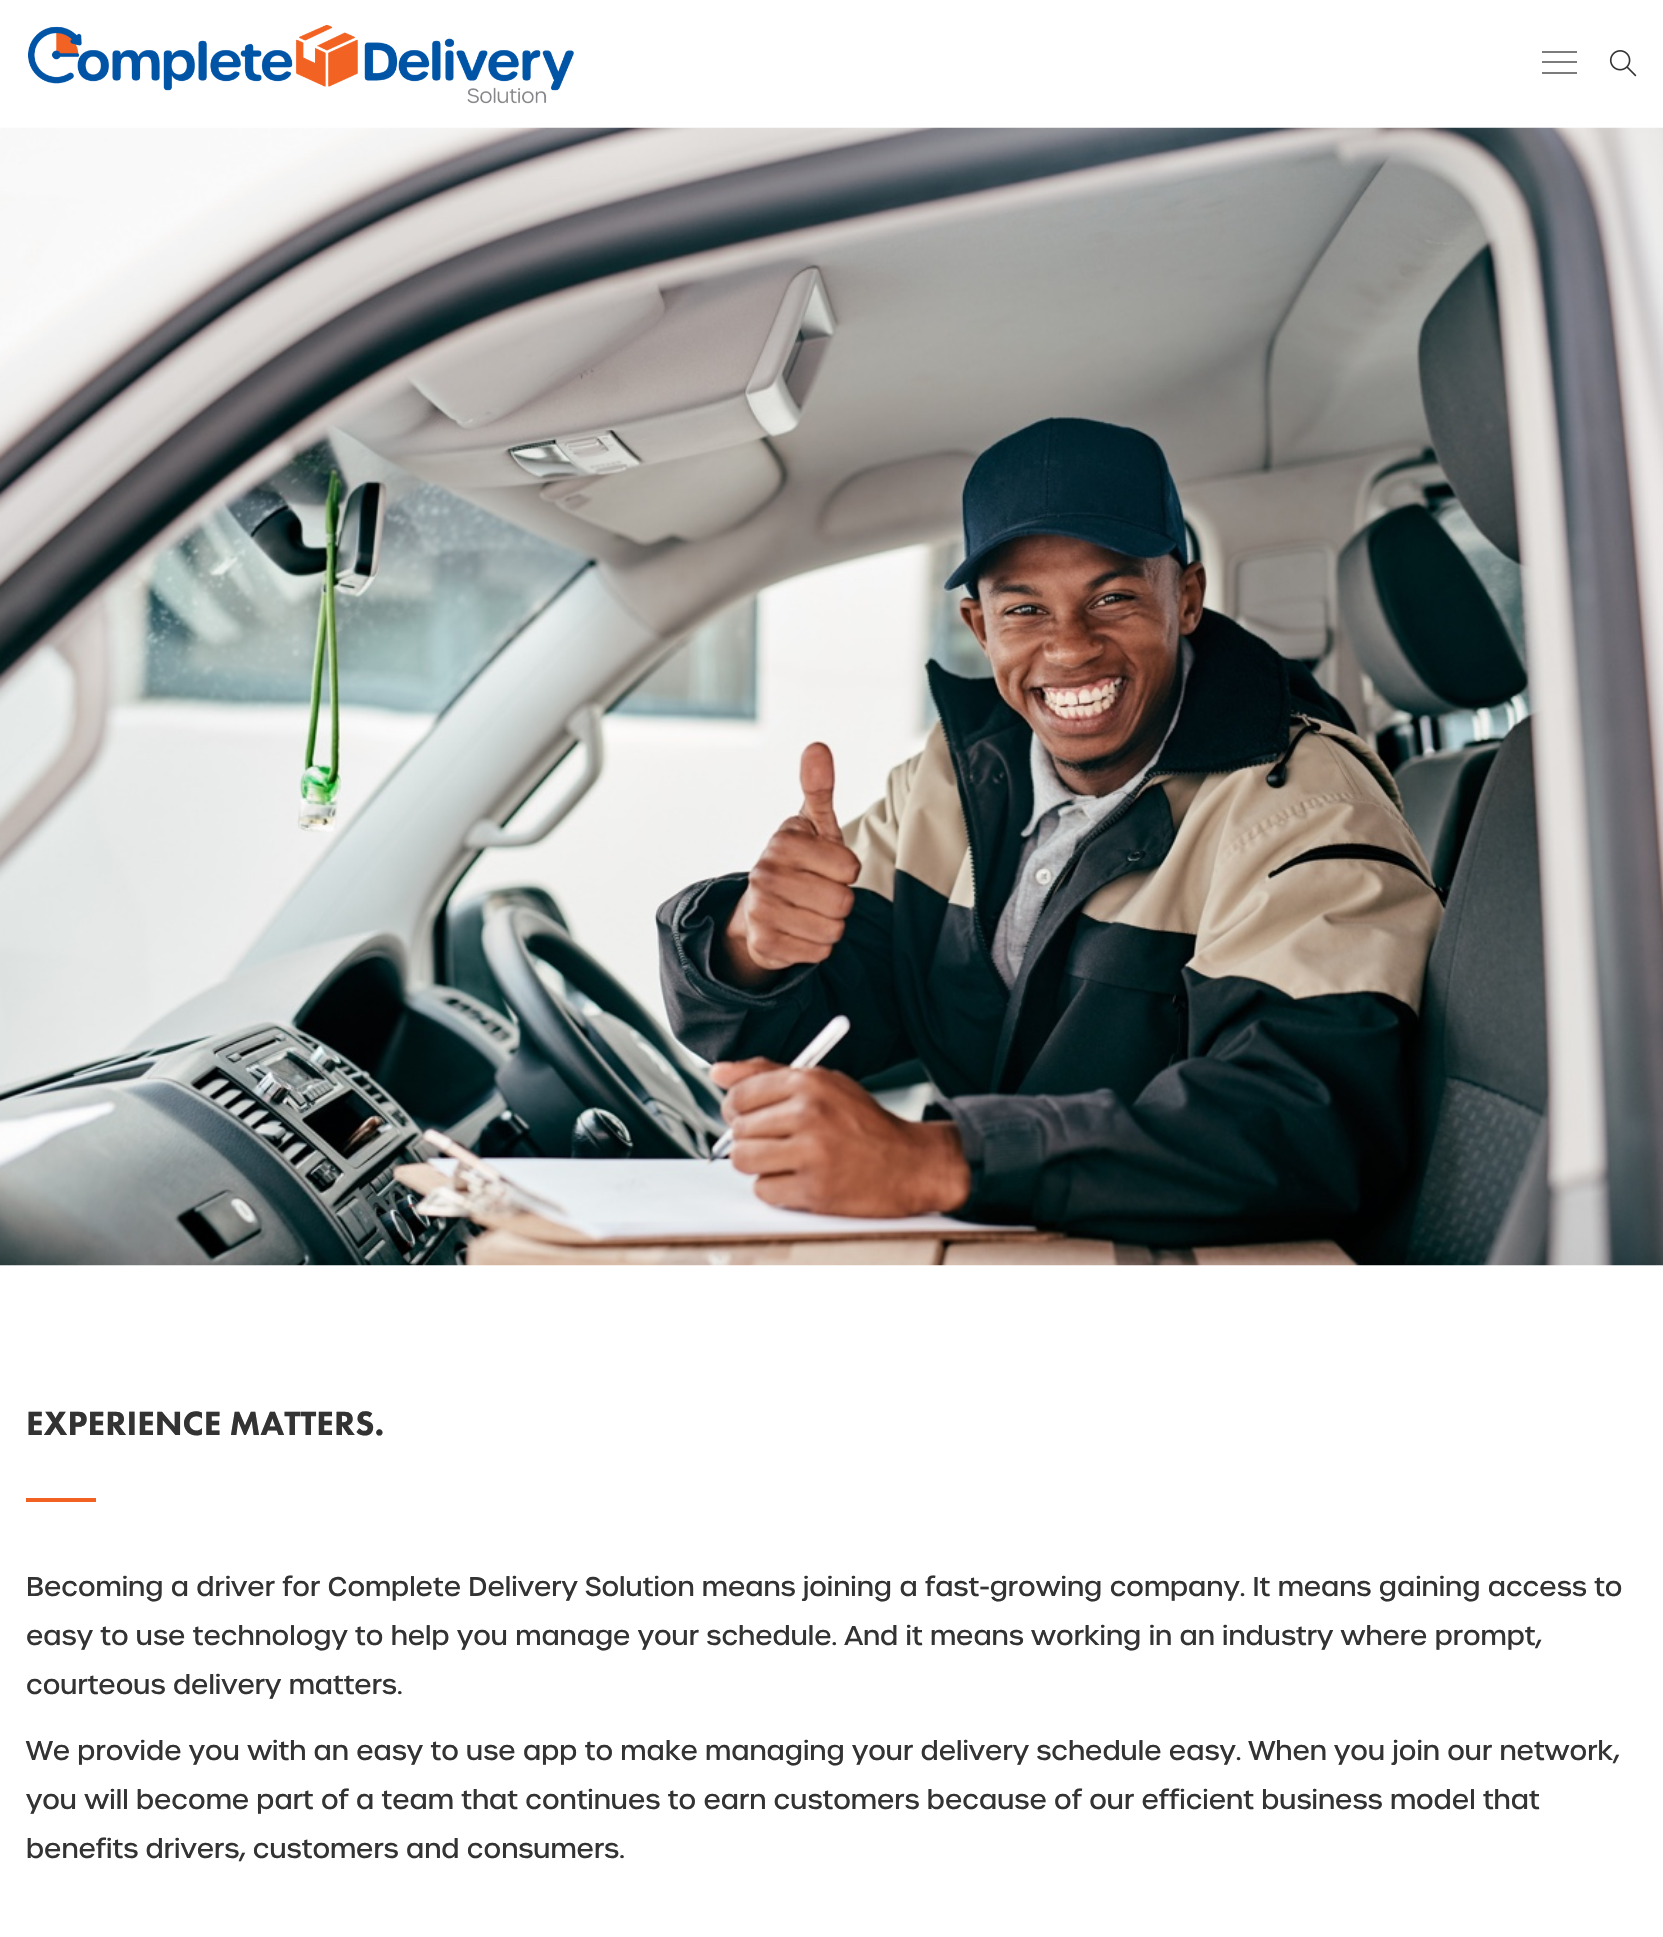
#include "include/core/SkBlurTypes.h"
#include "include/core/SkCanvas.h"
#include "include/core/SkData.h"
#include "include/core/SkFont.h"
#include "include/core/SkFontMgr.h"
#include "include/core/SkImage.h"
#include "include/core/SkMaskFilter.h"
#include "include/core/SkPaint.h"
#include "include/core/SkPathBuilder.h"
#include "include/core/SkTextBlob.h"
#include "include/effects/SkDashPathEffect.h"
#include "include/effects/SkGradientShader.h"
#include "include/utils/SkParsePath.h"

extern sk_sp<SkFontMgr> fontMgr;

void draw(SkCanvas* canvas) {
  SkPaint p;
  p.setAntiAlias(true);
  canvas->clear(SK_ColorWHITE);
  canvas->drawImageRect(SkImages::DeferredFromEncodedData(SkData::MakeFromFileName("images/1.png")), SkRect::MakeLTRB(28, 25, 574, 104), SkSamplingOptions());
  p.setColor(SkColorSetRGB(124, 124, 124));
  canvas->drawRect(SkRect::MakeLTRB(1542, 61, 1577, 63), p);
  canvas->drawRect(SkRect::MakeLTRB(1542, 51, 1577, 53), p);
  canvas->drawRect(SkRect::MakeLTRB(1542, 72, 1577, 74), p);
  canvas->drawImageRect(SkImages::DeferredFromEncodedData(SkData::MakeFromFileName("images/2.png")), SkRect::MakeLTRB(1609, 50, 1637, 77), SkSamplingOptions());
  canvas->drawImageRect(SkImages::DeferredFromEncodedData(SkData::MakeFromFileName("images/3.png")), SkRect::MakeLTRB(0, 127, 1663, 1266), SkSamplingOptions());
  p.setColor(SkColorSetRGB(242, 97, 34));
  canvas->drawRect(SkRect::MakeLTRB(26, 1498, 96, 1502), p);
  SkFont font1(fontMgr->matchFamilyStyle("Futura PT", SkFontStyle(900, SkFontStyle::kNormal_Width, SkFontStyle::kUpright_Slant)), 35);
  font1.setSubpixel(true);
  p.setColor(SkColorSetRGB(51, 51, 51));
  canvas->drawString("EXPERIENCE MATTERS.", 26, 1435, font1, p);
  SkFont font2(fontMgr->matchFamilyStyle("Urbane", SkFontStyle(500, SkFontStyle::kNormal_Width, SkFontStyle::kUpright_Slant)), 26.25f);
  font2.setSubpixel(true);
  canvas->drawString("Becoming a driver for Complete Delivery Solution means joining a fast-growing company. It means gaining access to", 26, 1596, font2, p);
  canvas->drawString("easy to use technology to help you manage your schedule. And it means working in an industry where prompt,", 26, 1645, font2, p);
  canvas->drawString("courteous delivery matters.", 26, 1694, font2, p);
  canvas->drawString("We provide you with an easy to use app to make managing your delivery schedule easy. When you join our network,", 26, 1760, font2, p);
  canvas->drawString("you will become part of a team that continues to earn customers because of our efficient business model that", 26, 1809, font2, p);
  canvas->drawString("benefits drivers, customers and consumers.", 26, 1858, font2, p);
}
